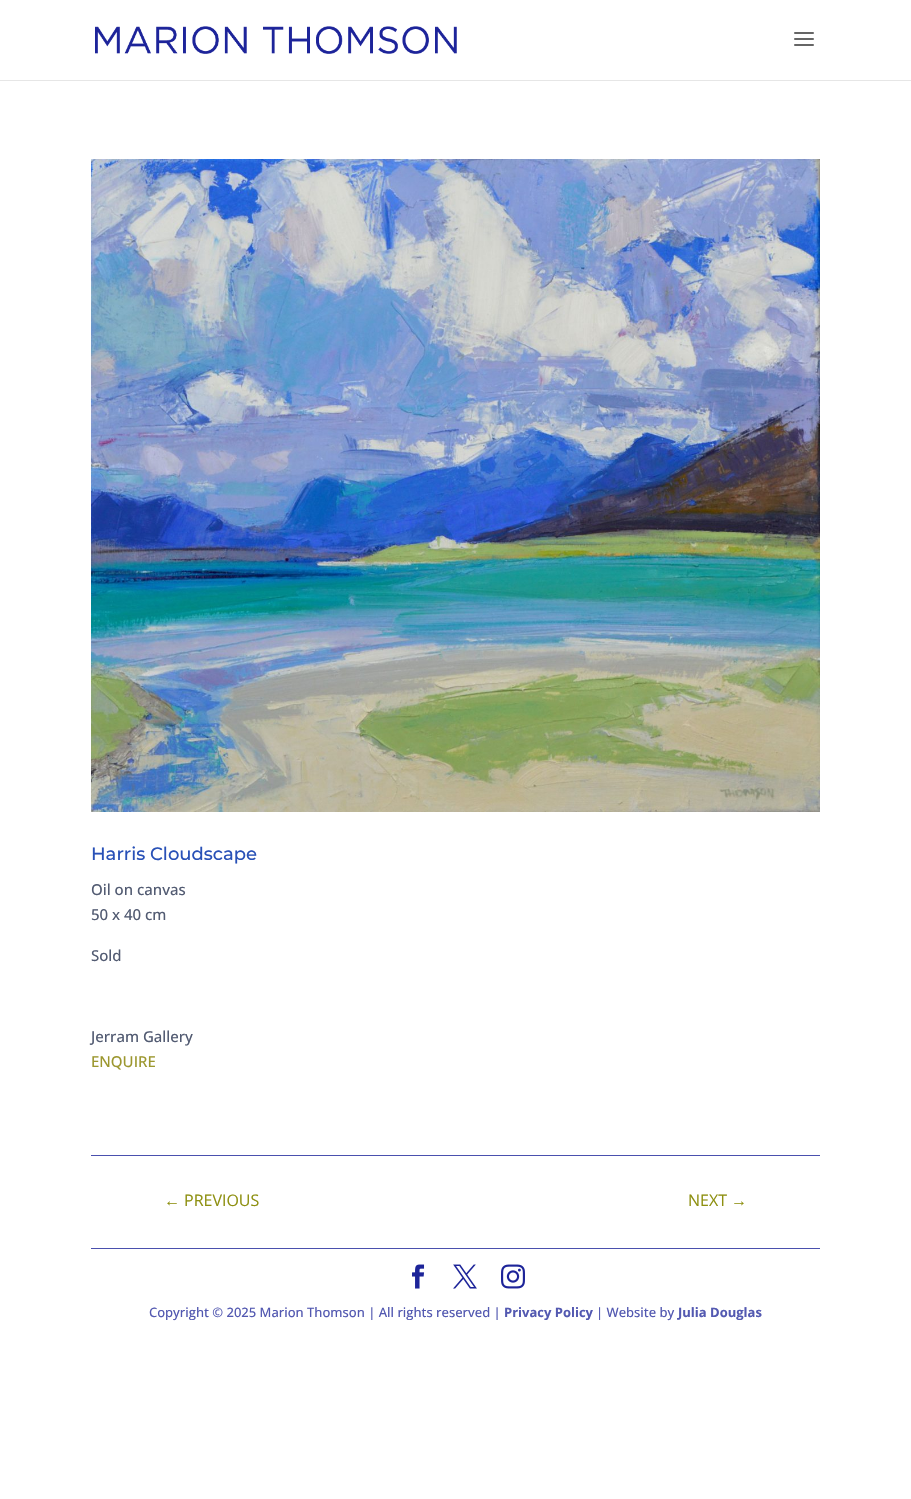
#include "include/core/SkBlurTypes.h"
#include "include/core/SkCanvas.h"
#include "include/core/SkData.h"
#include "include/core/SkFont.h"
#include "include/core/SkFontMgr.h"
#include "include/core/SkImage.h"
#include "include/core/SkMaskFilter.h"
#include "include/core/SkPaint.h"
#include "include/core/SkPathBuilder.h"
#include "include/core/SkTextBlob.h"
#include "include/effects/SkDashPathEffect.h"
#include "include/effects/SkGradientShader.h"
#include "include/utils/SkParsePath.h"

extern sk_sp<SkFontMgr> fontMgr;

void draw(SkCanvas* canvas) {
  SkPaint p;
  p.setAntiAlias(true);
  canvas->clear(SK_ColorWHITE);
  p.setColor(SkColorSetRGB(230, 230, 230));
  canvas->drawRect(SkRect::MakeLTRB(0, 80, 911, 81), p);
  canvas->drawImageRect(SkImages::DeferredFromEncodedData(SkData::MakeFromFileName("images/1.png")), SkRect::MakeLTRB(95, 26, 457, 54), SkSamplingOptions());
  canvas->drawImageRect(SkImages::DeferredFromEncodedData(SkData::MakeFromFileName("images/2.png")), SkRect::MakeLTRB(794, 32, 814, 46), SkSamplingOptions());
  canvas->drawImageRect(SkImages::DeferredFromEncodedData(SkData::MakeFromFileName("images/3.png")), SkRect::MakeLTRB(91, 159, 820, 812), SkSamplingOptions());
  p.setColor(SkColorSetRGB(74, 80, 174));
  canvas->drawRect(SkRect::MakeLTRB(91, 1155, 820, 1156), p);
  canvas->drawRect(SkRect::MakeLTRB(91, 1248, 820, 1249), p);
  canvas->drawImageRect(SkImages::DeferredFromEncodedData(SkData::MakeFromFileName("images/4.png")), SkRect::MakeLTRB(412, 1264, 425, 1289), SkSamplingOptions());
  canvas->drawImageRect(SkImages::DeferredFromEncodedData(SkData::MakeFromFileName("images/5.png")), SkRect::MakeLTRB(453, 1264, 477, 1289), SkSamplingOptions());
  canvas->drawImageRect(SkImages::DeferredFromEncodedData(SkData::MakeFromFileName("images/6.png")), SkRect::MakeLTRB(501, 1264, 525, 1289), SkSamplingOptions());
  SkFont font1(fontMgr->matchFamilyStyle("Montserrat", SkFontStyle(500, SkFontStyle::kNormal_Width, SkFontStyle::kUpright_Slant)), 18);
  font1.setSubpixel(true);
  p.setColor(SkColorSetRGB(41, 81, 183));
  canvas->drawString("Harris Cloudscape", 91, 860, font1, p);
  SkFont font2(fontMgr->matchFamilyStyle("Open Sans", SkFontStyle(500, SkFontStyle::kNormal_Width, SkFontStyle::kUpright_Slant)), 15);
  font2.setSubpixel(true);
  p.setColor(SkColorSetRGB(82, 91, 114));
  canvas->drawString("Oil on canvas", 91, 895, font2, p);
  canvas->drawString("50 x 40 cm", 91, 920, font2, p);
  canvas->drawString("Sold", 91, 961, font2, p);
  canvas->drawString("Jerram Gallery", 91, 1042, font2, p);
  p.setColor(SkColorSetRGB(156, 151, 47));
  canvas->drawString("ENQUIRE", 91, 1067, font2, p);
  SkFont font3(fontMgr->matchFamilyStyle("Liberation Sans", SkFontStyle::Normal()), 16);
  font3.setSubpixel(true);
  p.setColor(SkColorSetRGB(142, 144, 17));
  canvas->drawString("←", 164, 1206, font3, p);
  SkFont font4(fontMgr->matchFamilyStyle("Open Sans", SkFontStyle::Normal()), 16);
  font4.setSubpixel(true);
  canvas->drawString("PREVIOUS", 184, 1206, font4, p);
  canvas->drawString("NEXT", 688, 1206, font4, p);
  canvas->drawString("→", 731, 1206, font3, p);
  SkFont font5(fontMgr->matchFamilyStyle("Open Sans", SkFontStyle(500, SkFontStyle::kNormal_Width, SkFontStyle::kUpright_Slant)), 13);
  font5.setSubpixel(true);
  p.setColor(SkColorSetRGB(83, 89, 177));
  canvas->drawString("Copyright © 2025 Marion Thomson | All rights reserved |", 149, 1317, font5, p);
  SkFont font6(fontMgr->matchFamilyStyle("Open Sans", SkFontStyle::Bold()), 13);
  font6.setSubpixel(true);
  canvas->drawString("Privacy Policy", 504, 1317, font6, p);
  canvas->drawString("| Website by", 596, 1317, font5, p);
  canvas->drawString("Julia Douglas", 678, 1317, font6, p);
}
